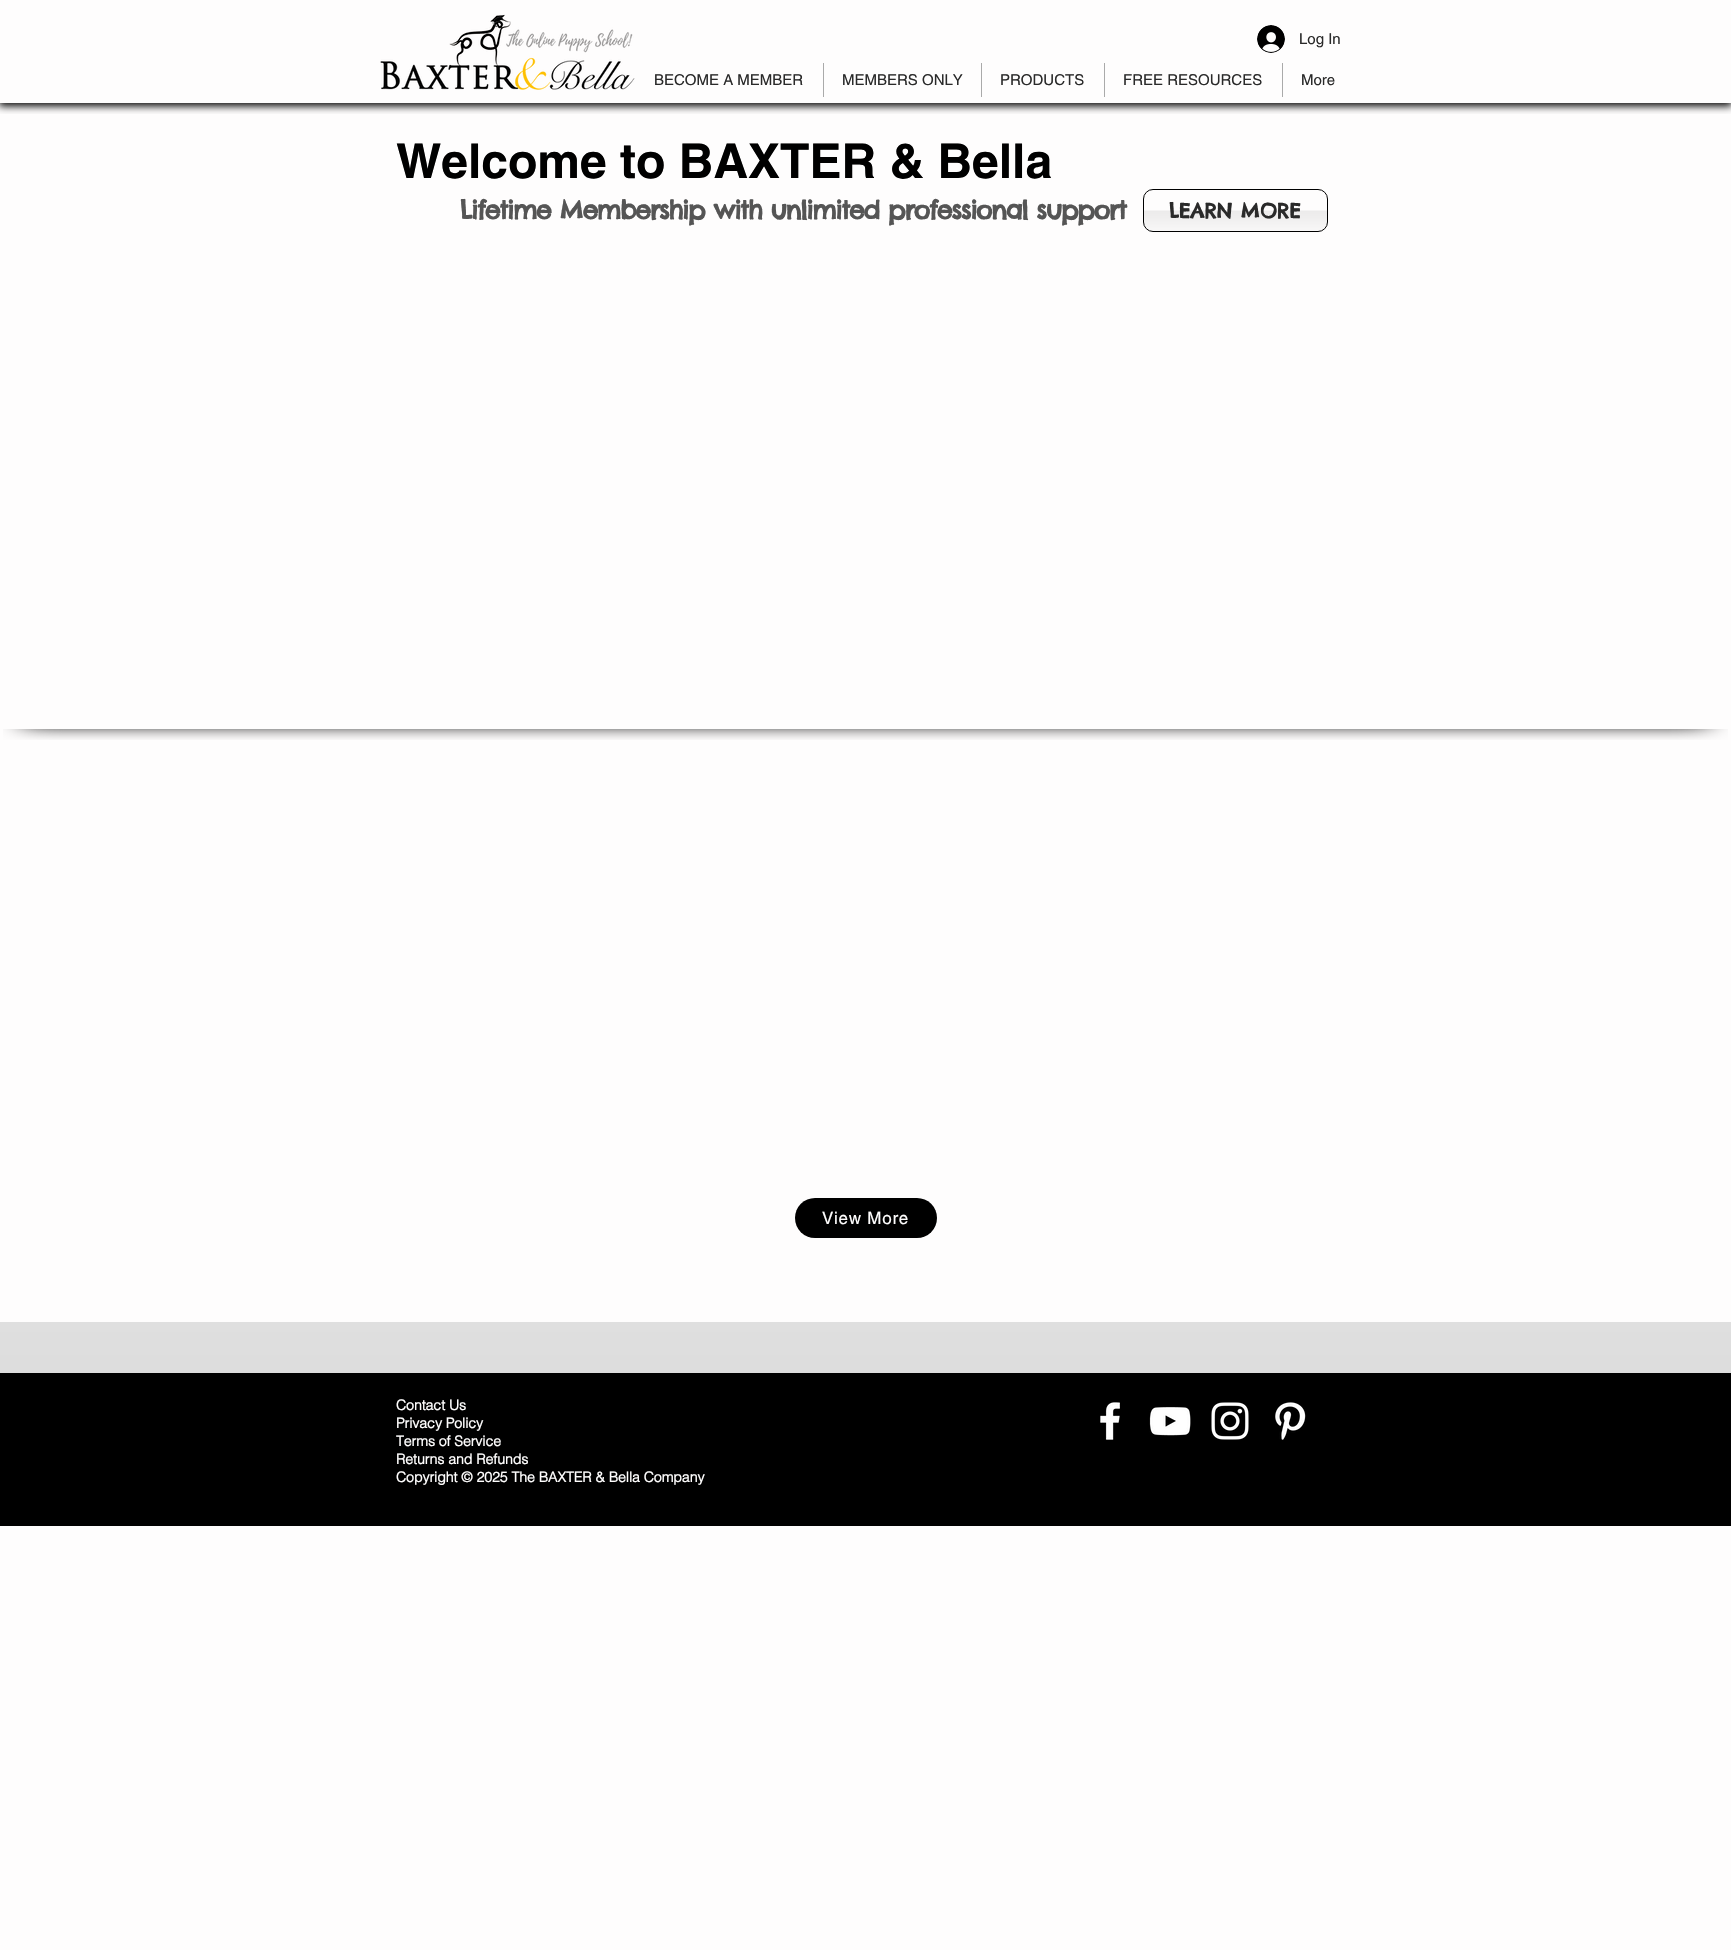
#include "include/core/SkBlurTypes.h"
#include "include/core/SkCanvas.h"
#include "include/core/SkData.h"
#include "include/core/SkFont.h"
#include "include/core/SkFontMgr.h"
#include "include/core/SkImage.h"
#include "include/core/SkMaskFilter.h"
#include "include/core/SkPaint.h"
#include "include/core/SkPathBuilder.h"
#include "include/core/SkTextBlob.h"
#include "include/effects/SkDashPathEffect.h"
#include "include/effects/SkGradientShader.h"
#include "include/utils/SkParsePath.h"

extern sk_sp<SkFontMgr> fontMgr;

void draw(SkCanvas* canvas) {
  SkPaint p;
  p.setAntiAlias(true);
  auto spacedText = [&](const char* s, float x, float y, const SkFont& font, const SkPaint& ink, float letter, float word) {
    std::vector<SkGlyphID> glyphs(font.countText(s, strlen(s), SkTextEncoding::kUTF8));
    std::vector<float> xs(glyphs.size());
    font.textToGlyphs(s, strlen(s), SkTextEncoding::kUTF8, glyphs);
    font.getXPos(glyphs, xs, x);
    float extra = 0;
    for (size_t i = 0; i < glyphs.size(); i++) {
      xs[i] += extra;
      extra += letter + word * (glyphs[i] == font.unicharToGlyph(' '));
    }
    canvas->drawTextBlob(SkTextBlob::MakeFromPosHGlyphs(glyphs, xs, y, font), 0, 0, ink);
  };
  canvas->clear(SkColorSetRGB(254, 253, 253));
  canvas->save();
  canvas->clipRect(SkRect::MakeLTRB(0, 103, 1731, 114));
  p.setColor(SK_ColorBLACK);
  p.setMaskFilter(SkMaskFilter::MakeBlur(kNormal_SkBlurStyle, 4));
  canvas->drawRect(SkRect::MakeLTRB(-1, 1, 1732, 106), p);
  p.setMaskFilter(nullptr);
  canvas->restore();
  canvas->drawImageRect(SkImages::DeferredFromEncodedData(SkData::MakeFromFileName("images/1.png")), SkRect::MakeLTRB(380, 14, 635, 90), SkSamplingOptions());
  canvas->drawImageRect(SkImages::DeferredFromEncodedData(SkData::MakeFromFileName("images/2.png")), SkRect::MakeLTRB(1257, 25, 1285, 53), SkSamplingOptions());
  p.setColor(SkColorSetRGB(170, 170, 170));
  canvas->drawRect(SkRect::MakeLTRB(823, 63, 824, 97), p);
  canvas->drawRect(SkRect::MakeLTRB(981, 63, 982, 97), p);
  canvas->drawRect(SkRect::MakeLTRB(1104, 63, 1105, 97), p);
  canvas->drawRect(SkRect::MakeLTRB(1282, 63, 1283, 97), p);
  canvas->drawImageRect(SkImages::DeferredFromEncodedData(SkData::MakeFromFileName("images/3.png")), SkRect::MakeLTRB(1143, 210, 1328, 231), SkSamplingOptions());
  p.setStyle(SkPaint::kStroke_Style);
  p.setStrokeWidth(1);
  p.setColor(SK_ColorBLACK);
  canvas->drawRoundRect(SkRect::MakeLTRB(1143.5f, 189.5f, 1327.5f, 231.5f), 9.5f, 9.5f, p);
  canvas->drawImageRect(SkImages::DeferredFromEncodedData(SkData::MakeFromFileName("images/4.png")), SkRect::MakeLTRB(3, 729, 100, 740), SkSamplingOptions());
  canvas->drawImageRect(SkImages::DeferredFromEncodedData(SkData::MakeFromFileName("images/5.png")), SkRect::MakeLTRB(100, 729, 1631, 740), SkSamplingOptions());
  canvas->drawImageRect(SkImages::DeferredFromEncodedData(SkData::MakeFromFileName("images/6.png")), SkRect::MakeLTRB(1631, 729, 1728, 740), SkSamplingOptions());
  p.setStyle(SkPaint::kFill_Style);
  canvas->drawRoundRect(SkRect::MakeLTRB(795, 1198, 937, 1238), 20, 20, p);
  p.setColor(SkColorSetRGB(212, 212, 212));
  canvas->drawRect(SkRect::MakeLTRB(0, 1322, 1731, 1373), p);
  canvas->drawImageRect(SkImages::DeferredFromEncodedData(SkData::MakeFromFileName("images/7.png")), SkRect::MakeLTRB(0, 1322, 1731, 1373), SkSamplingOptions());
  p.setColor(SK_ColorBLACK);
  canvas->drawRect(SkRect::MakeLTRB(0, 1373, 1731, 1526), p);
  canvas->drawImageRect(SkImages::DeferredFromEncodedData(SkData::MakeFromFileName("images/8.png")), SkRect::MakeLTRB(1100, 1402, 1120, 1440), SkSamplingOptions());
  canvas->drawImageRect(SkImages::DeferredFromEncodedData(SkData::MakeFromFileName("images/9.png")), SkRect::MakeLTRB(1149, 1407, 1191, 1436), SkSamplingOptions());
  canvas->drawImageRect(SkImages::DeferredFromEncodedData(SkData::MakeFromFileName("images/10.png")), SkRect::MakeLTRB(1211, 1402, 1249, 1440), SkSamplingOptions());
  canvas->drawImageRect(SkImages::DeferredFromEncodedData(SkData::MakeFromFileName("images/11.png")), SkRect::MakeLTRB(1275, 1402, 1306, 1440), SkSamplingOptions());
  SkFont font1(fontMgr->matchFamilyStyle("helvetica", SkFontStyle::Normal()), 15);
  font1.setSubpixel(true);
  p.setColor(SkColorSetRGB(42, 42, 42));
  canvas->drawString("Log In", 1299, 44, font1, p);
  canvas->drawString("BECOME A MEMBER", 654, 85, font1, p);
  canvas->drawString("MEMBERS ONLY", 842, 85, font1, p);
  canvas->drawString("PRODUCTS", 1000, 85, font1, p);
  canvas->drawString("FREE RESOURCES", 1123, 85, font1, p);
  canvas->drawString("More", 1301, 85, font1, p);
  SkFont font2(fontMgr->matchFamilyStyle("helvetica", SkFontStyle::Bold()), 48);
  font2.setSubpixel(true);
  p.setColor(SK_ColorBLACK);
  canvas->drawString("Welcome to BAXTER & Bella", 396, 178, font2, p);
  SkFont font3(fontMgr->matchFamilyStyle("Chelsea Market", SkFontStyle::Bold()), 25);
  font3.setSubpixel(true);
  p.setColor(SkColorSetRGB(85, 85, 85));
  spacedText("Lifetime Membership with unlimited professional support", 460, 219, font3, p, -1.25f, 0);
  SkFont font4(fontMgr->matchFamilyStyle("Chelsea Market", SkFontStyle::Bold()), 20);
  font4.setSubpixel(true);
  p.setColor(SkColorSetRGB(42, 42, 42));
  canvas->drawString("LEARN MORE", 1169, 218, font4, p);
  SkFont font5(fontMgr->matchFamilyStyle("helvetica", SkFontStyle::Normal()), 17);
  font5.setSubpixel(true);
  p.setColor(SkColorSetRGB(254, 253, 253));
  spacedText("View More", 822, 1224, font5, p, 0.75f, 0);
  SkFont font6(fontMgr->matchFamilyStyle("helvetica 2", SkFontStyle::Bold()), 14);
  font6.setSubpixel(true);
  canvas->drawString("Contact Us", 396, 1410, font6, p);
  canvas->drawString("Privacy Policy", 396, 1428, font6, p);
  canvas->drawString("Terms of Service", 396, 1446, font6, p);
  canvas->drawString("Returns and Refunds", 396, 1464, font6, p);
  canvas->drawString("Copyright © 2025 The BAXTER & Bella Company", 396, 1482, font6, p);
}
